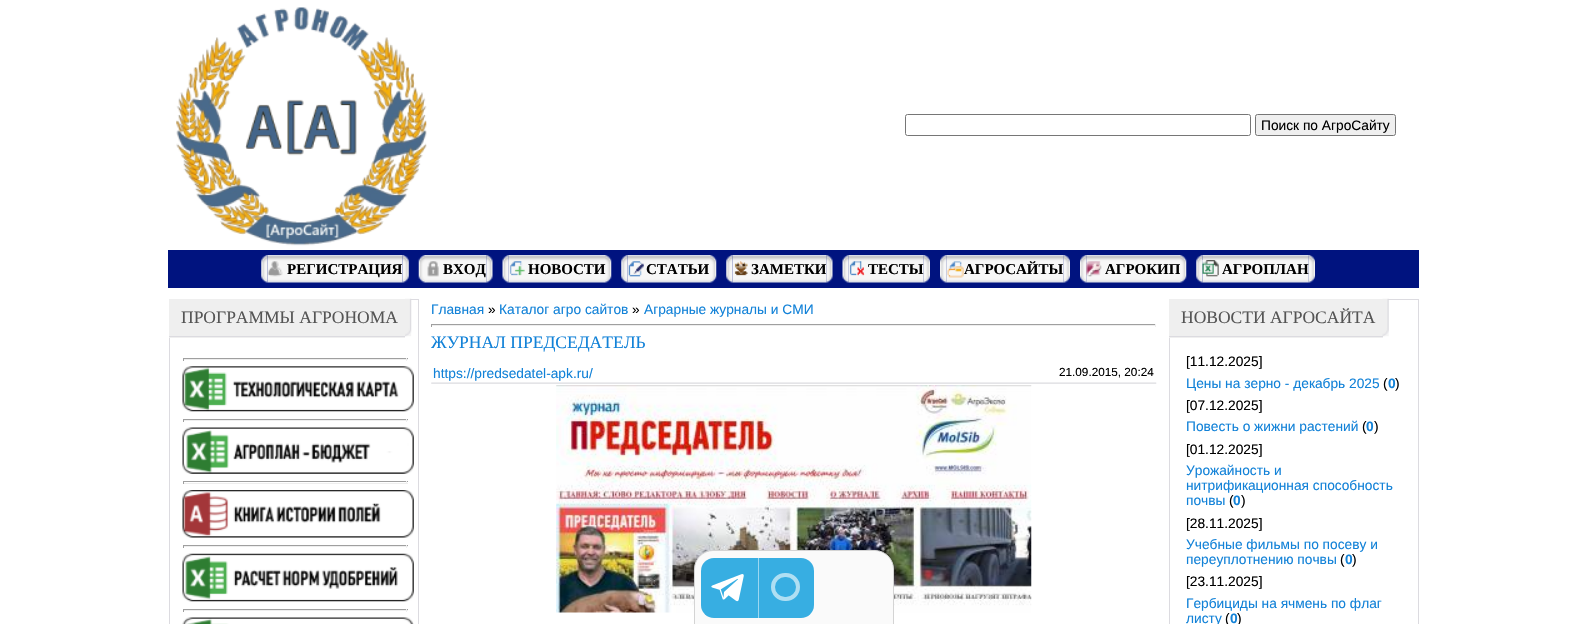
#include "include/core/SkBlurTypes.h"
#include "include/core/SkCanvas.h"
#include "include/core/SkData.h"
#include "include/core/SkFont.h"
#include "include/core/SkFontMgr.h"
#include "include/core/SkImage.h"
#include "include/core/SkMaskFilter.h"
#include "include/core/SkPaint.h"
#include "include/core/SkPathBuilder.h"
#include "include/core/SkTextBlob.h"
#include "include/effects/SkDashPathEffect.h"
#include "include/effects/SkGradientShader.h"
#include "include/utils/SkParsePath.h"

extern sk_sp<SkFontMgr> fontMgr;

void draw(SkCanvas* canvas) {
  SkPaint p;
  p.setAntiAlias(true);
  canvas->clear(SK_ColorWHITE);
  canvas->drawImageRect(SkImages::DeferredFromEncodedData(SkData::MakeFromFileName("images/1.png")), SkRect::MakeLTRB(176, 7, 427, 246), SkSamplingOptions());
  p.setStyle(SkPaint::kStroke_Style);
  p.setStrokeWidth(1);
  p.setColor(SkColorSetRGB(118, 118, 118));
  canvas->drawRoundRect(SkRect::MakeLTRB(905.5f, 114.5f, 1250.5f, 135.5f), 2, 2, p);
  p.setStyle(SkPaint::kFill_Style);
  p.setColor(SkColorSetRGB(239, 239, 239));
  canvas->drawRoundRect(SkRect::MakeLTRB(1255.5f, 114.5f, 1395.5f, 135.5f), 2, 2, p);
  p.setStyle(SkPaint::kStroke_Style);
  p.setColor(SkColorSetRGB(118, 118, 118));
  canvas->drawRoundRect(SkRect::MakeLTRB(1255.5f, 114.5f, 1395.5f, 135.5f), 2, 2, p);
  p.setStyle(SkPaint::kFill_Style);
  p.setColor(SkColorSetRGB(0, 19, 127));
  canvas->drawRect(SkRect::MakeLTRB(168, 250, 1419, 288), p);
  canvas->drawImageRect(SkImages::DeferredFromEncodedData(SkData::MakeFromFileName("images/2.png")), SkRect::MakeLTRB(261, 255, 268, 283), SkSamplingOptions());
  canvas->drawImageRect(SkImages::DeferredFromEncodedData(SkData::MakeFromFileName("images/3.png")), SkRect::MakeLTRB(267, 255, 403, 283), SkSamplingOptions());
  canvas->drawImageRect(SkImages::DeferredFromEncodedData(SkData::MakeFromFileName("images/4.png")), SkRect::MakeLTRB(267, 261, 283, 277), SkSamplingOptions());
  canvas->drawImageRect(SkImages::DeferredFromEncodedData(SkData::MakeFromFileName("images/5.png")), SkRect::MakeLTRB(402, 255, 409, 283), SkSamplingOptions());
  canvas->drawImageRect(SkImages::DeferredFromEncodedData(SkData::MakeFromFileName("images/6.png")), SkRect::MakeLTRB(418, 255, 425, 283), SkSamplingOptions());
  canvas->drawImageRect(SkImages::DeferredFromEncodedData(SkData::MakeFromFileName("images/7.png")), SkRect::MakeLTRB(425, 255, 487, 283), SkSamplingOptions());
  canvas->drawImageRect(SkImages::DeferredFromEncodedData(SkData::MakeFromFileName("images/8.png")), SkRect::MakeLTRB(427, 261, 439, 277), SkSamplingOptions());
  canvas->drawImageRect(SkImages::DeferredFromEncodedData(SkData::MakeFromFileName("images/10.png")), SkRect::MakeLTRB(502, 255, 509, 283), SkSamplingOptions());
  canvas->drawImageRect(SkImages::DeferredFromEncodedData(SkData::MakeFromFileName("images/11.png")), SkRect::MakeLTRB(508, 255, 605, 283), SkSamplingOptions());
  canvas->drawImageRect(SkImages::DeferredFromEncodedData(SkData::MakeFromFileName("images/12.png")), SkRect::MakeLTRB(509, 261, 525, 276), SkSamplingOptions());
  canvas->drawImageRect(SkImages::DeferredFromEncodedData(SkData::MakeFromFileName("images/13.png")), SkRect::MakeLTRB(605, 255, 612, 283), SkSamplingOptions());
  canvas->drawImageRect(SkImages::DeferredFromEncodedData(SkData::MakeFromFileName("images/2.png")), SkRect::MakeLTRB(621, 255, 628, 283), SkSamplingOptions());
  canvas->drawImageRect(SkImages::DeferredFromEncodedData(SkData::MakeFromFileName("images/14.png")), SkRect::MakeLTRB(627, 255, 710, 283), SkSamplingOptions());
  canvas->drawImageRect(SkImages::DeferredFromEncodedData(SkData::MakeFromFileName("images/15.png")), SkRect::MakeLTRB(628, 261, 644, 277), SkSamplingOptions());
  canvas->drawImageRect(SkImages::DeferredFromEncodedData(SkData::MakeFromFileName("images/16.png")), SkRect::MakeLTRB(710, 255, 717, 283), SkSamplingOptions());
  canvas->drawImageRect(SkImages::DeferredFromEncodedData(SkData::MakeFromFileName("images/2.png")), SkRect::MakeLTRB(726, 255, 733, 283), SkSamplingOptions());
  canvas->drawImageRect(SkImages::DeferredFromEncodedData(SkData::MakeFromFileName("images/17.png")), SkRect::MakeLTRB(732, 255, 827, 283), SkSamplingOptions());
  canvas->drawImageRect(SkImages::DeferredFromEncodedData(SkData::MakeFromFileName("images/18.png")), SkRect::MakeLTRB(734, 261, 748, 276), SkSamplingOptions());
  canvas->drawImageRect(SkImages::DeferredFromEncodedData(SkData::MakeFromFileName("images/10.png")), SkRect::MakeLTRB(842, 255, 849, 283), SkSamplingOptions());
  canvas->drawImageRect(SkImages::DeferredFromEncodedData(SkData::MakeFromFileName("images/20.png")), SkRect::MakeLTRB(848, 255, 924, 283), SkSamplingOptions());
  canvas->drawImageRect(SkImages::DeferredFromEncodedData(SkData::MakeFromFileName("images/21.png")), SkRect::MakeLTRB(849, 261, 865, 276), SkSamplingOptions());
  canvas->drawImageRect(SkImages::DeferredFromEncodedData(SkData::MakeFromFileName("images/22.png")), SkRect::MakeLTRB(923, 255, 930, 283), SkSamplingOptions());
  canvas->drawImageRect(SkImages::DeferredFromEncodedData(SkData::MakeFromFileName("images/23.png")), SkRect::MakeLTRB(940, 255, 947, 283), SkSamplingOptions());
  canvas->drawImageRect(SkImages::DeferredFromEncodedData(SkData::MakeFromFileName("images/24.png")), SkRect::MakeLTRB(946, 255, 1064, 283), SkSamplingOptions());
  canvas->drawImageRect(SkImages::DeferredFromEncodedData(SkData::MakeFromFileName("images/25.png")), SkRect::MakeLTRB(947, 261, 964, 278), SkSamplingOptions());
  canvas->drawImageRect(SkImages::DeferredFromEncodedData(SkData::MakeFromFileName("images/27.png")), SkRect::MakeLTRB(1080, 255, 1087, 283), SkSamplingOptions());
  canvas->drawImageRect(SkImages::DeferredFromEncodedData(SkData::MakeFromFileName("images/28.png")), SkRect::MakeLTRB(1086, 255, 1180, 283), SkSamplingOptions());
  canvas->drawImageRect(SkImages::DeferredFromEncodedData(SkData::MakeFromFileName("images/29.png")), SkRect::MakeLTRB(1086, 261, 1102, 277), SkSamplingOptions());
  canvas->drawImageRect(SkImages::DeferredFromEncodedData(SkData::MakeFromFileName("images/2.png")), SkRect::MakeLTRB(1196, 255, 1203, 283), SkSamplingOptions());
  canvas->drawImageRect(SkImages::DeferredFromEncodedData(SkData::MakeFromFileName("images/30.png")), SkRect::MakeLTRB(1202, 255, 1309, 283), SkSamplingOptions());
  canvas->drawImageRect(SkImages::DeferredFromEncodedData(SkData::MakeFromFileName("images/31.png")), SkRect::MakeLTRB(1202, 260, 1219, 277), SkSamplingOptions());
  canvas->drawImageRect(SkImages::DeferredFromEncodedData(SkData::MakeFromFileName("images/32.png")), SkRect::MakeLTRB(1308, 255, 1315, 283), SkSamplingOptions());
  p.setColor(SkColorSetRGB(220, 219, 224));
  canvas->drawRect(SkRect::MakeLTRB(411, 299, 419, 300), p);
  canvas->drawRect(SkRect::MakeLTRB(418, 299, 419, 624), p);
  p.setColor(SkColorSetRGB(239, 239, 239));
  canvas->drawRect(SkRect::MakeLTRB(169, 299, 405, 338), p);
  p.setColor(SkColorSetRGB(220, 219, 224));
  canvas->drawRect(SkRect::MakeLTRB(169, 336, 405, 337), p);
  canvas->drawImageRect(SkImages::DeferredFromEncodedData(SkData::MakeFromFileName("images/33.png")), SkRect::MakeLTRB(405, 298, 412, 337), SkSamplingOptions());
  canvas->drawRect(SkRect::MakeLTRB(169, 338, 170, 624), p);
  p.setColor(SkColorSetRGB(159, 159, 159));
  canvas->drawRect(SkRect::MakeLTRB(183, 358, 408, 359), p);
  p.setColor(SkColorSetRGB(238, 238, 238));
  canvas->drawRect(SkRect::MakeLTRB(406, 358, 407, 361), p);
  canvas->drawRect(SkRect::MakeLTRB(183, 359, 408, 360), p);
  p.setColor(SkColorSetRGB(159, 159, 159));
  canvas->drawRect(SkRect::MakeLTRB(183, 358, 184, 361), p);
  canvas->drawImageRect(SkImages::DeferredFromEncodedData(SkData::MakeFromFileName("images/34.png")), SkRect::MakeLTRB(182, 366, 414, 412), SkSamplingOptions());
  canvas->drawRect(SkRect::MakeLTRB(183, 419, 408, 420), p);
  p.setColor(SkColorSetRGB(238, 238, 238));
  canvas->drawRect(SkRect::MakeLTRB(406, 419, 407, 422), p);
  canvas->drawRect(SkRect::MakeLTRB(183, 420, 408, 421), p);
  p.setColor(SkColorSetRGB(159, 159, 159));
  canvas->drawRect(SkRect::MakeLTRB(183, 419, 184, 422), p);
  canvas->drawImageRect(SkImages::DeferredFromEncodedData(SkData::MakeFromFileName("images/35.png")), SkRect::MakeLTRB(182, 427, 414, 474), SkSamplingOptions());
  canvas->drawRect(SkRect::MakeLTRB(183, 481, 408, 482), p);
  p.setColor(SkColorSetRGB(238, 238, 238));
  canvas->drawRect(SkRect::MakeLTRB(406, 481, 407, 484), p);
  canvas->drawRect(SkRect::MakeLTRB(183, 483, 408, 484), p);
  p.setColor(SkColorSetRGB(159, 159, 159));
  canvas->drawRect(SkRect::MakeLTRB(183, 481, 184, 484), p);
  canvas->drawImageRect(SkImages::DeferredFromEncodedData(SkData::MakeFromFileName("images/36.png")), SkRect::MakeLTRB(182, 490, 414, 538), SkSamplingOptions());
  canvas->drawRect(SkRect::MakeLTRB(183, 545, 408, 546), p);
  p.setColor(SkColorSetRGB(238, 238, 238));
  canvas->drawRect(SkRect::MakeLTRB(406, 545, 407, 548), p);
  canvas->drawRect(SkRect::MakeLTRB(183, 546, 408, 547), p);
  p.setColor(SkColorSetRGB(159, 159, 159));
  canvas->drawRect(SkRect::MakeLTRB(183, 545, 184, 548), p);
  canvas->drawImageRect(SkImages::DeferredFromEncodedData(SkData::MakeFromFileName("images/37.png")), SkRect::MakeLTRB(182, 553, 414, 602), SkSamplingOptions());
  canvas->drawRect(SkRect::MakeLTRB(183, 609, 408, 610), p);
  p.setColor(SkColorSetRGB(238, 238, 238));
  canvas->drawRect(SkRect::MakeLTRB(406, 609, 407, 612), p);
  canvas->drawRect(SkRect::MakeLTRB(183, 610, 408, 611), p);
  p.setColor(SkColorSetRGB(159, 159, 159));
  canvas->drawRect(SkRect::MakeLTRB(183, 609, 184, 612), p);
  canvas->drawImageRect(SkImages::DeferredFromEncodedData(SkData::MakeFromFileName("images/38.png")), SkRect::MakeLTRB(182, 617, 414, 624), SkSamplingOptions());
  canvas->drawRect(SkRect::MakeLTRB(431, 324, 1156, 325), p);
  p.setColor(SkColorSetRGB(238, 238, 238));
  canvas->drawRect(SkRect::MakeLTRB(1155, 324, 1156, 327), p);
  canvas->drawRect(SkRect::MakeLTRB(431, 325, 1156, 326), p);
  p.setColor(SkColorSetRGB(159, 159, 159));
  canvas->drawRect(SkRect::MakeLTRB(431, 324, 432, 327), p);
  canvas->drawImageRect(SkImages::DeferredFromEncodedData(SkData::MakeFromFileName("images/39.png")), SkRect::MakeLTRB(431, 382, 1157, 384), SkSamplingOptions());
  canvas->drawImageRect(SkImages::DeferredFromEncodedData(SkData::MakeFromFileName("images/40.png")), SkRect::MakeLTRB(556, 385, 1032, 613), SkSamplingOptions());
  p.setColor(SkColorSetRGB(220, 219, 224));
  canvas->drawRect(SkRect::MakeLTRB(1388, 299, 1419, 300), p);
  canvas->drawRect(SkRect::MakeLTRB(1418, 299, 1419, 624), p);
  p.setColor(SkColorSetRGB(239, 239, 239));
  canvas->drawRect(SkRect::MakeLTRB(1169, 299, 1383, 338), p);
  p.setColor(SkColorSetRGB(220, 219, 224));
  canvas->drawRect(SkRect::MakeLTRB(1169, 336, 1383, 337), p);
  canvas->drawImageRect(SkImages::DeferredFromEncodedData(SkData::MakeFromFileName("images/41.png")), SkRect::MakeLTRB(1382, 298, 1389, 337), SkSamplingOptions());
  canvas->drawRect(SkRect::MakeLTRB(1169, 338, 1170, 624), p);
  p.setColor(SkColorSetRGB(250, 250, 250));
  canvas->drawPath(SkPathBuilder().moveTo(713, 550.5f).lineTo(875, 550.5f).cubicTo(885, 550.5f, 893.5f, 559, 893.5f, 569).lineTo(893.5f, 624.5f).lineTo(694.5f, 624.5f).lineTo(694.5f, 569).cubicTo(694.5f, 559, 703, 550.5f, 713, 550.5f).close().detach(), p);
  p.setStyle(SkPaint::kStroke_Style);
  p.setColor(SkColorSetRGB(212, 212, 212));
  canvas->drawPath(SkPathBuilder().moveTo(713, 550.5f).lineTo(875, 550.5f).cubicTo(885, 550.5f, 893.5f, 559, 893.5f, 569).lineTo(893.5f, 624.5f).lineTo(694.5f, 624.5f).lineTo(694.5f, 569).cubicTo(694.5f, 559, 703, 550.5f, 713, 550.5f).close().detach(), p);
  p.setStyle(SkPaint::kFill_Style);
  p.setColor(SkColorSetRGB(55, 174, 226));
  canvas->drawRoundRect(SkRect::MakeLTRB(701, 558, 814, 618), 13, 13, p);
  canvas->drawImageRect(SkImages::DeferredFromEncodedData(SkData::MakeFromFileName("images/42.png")), SkRect::MakeLTRB(711, 574, 744, 602), SkSamplingOptions());
  p.setColor(SkColorSetRGB(155, 215, 241));
  canvas->drawRect(SkRect::MakeLTRB(758, 558, 759, 618), p);
  p.setStyle(SkPaint::kStroke_Style);
  p.setStrokeWidth(4);
  p.setColor(SkColorSetRGB(175, 223, 243));
  canvas->drawRoundRect(SkRect::MakeLTRB(773, 575, 798, 599), 12, 12, p);
  SkFont font1(fontMgr->matchFamilyStyle("Liberation Sans", SkFontStyle::Normal()), 13.75f);
  font1.setSubpixel(true);
  p.setStyle(SkPaint::kFill_Style);
  p.setColor(SK_ColorBLACK);
  canvas->drawString("Поиск по АгроСайту", 1261, 130, font1, p);
  SkFont font2(fontMgr->matchFamilyStyle("Liberation Serif", SkFontStyle::Bold()), 15);
  font2.setSubpixel(true);
  canvas->drawString("РЕГИСТРАЦИЯ", 287, 274, font2, p);
  canvas->drawString("ВХОД", 443, 274, font2, p);
  canvas->drawImageRect(SkImages::DeferredFromEncodedData(SkData::MakeFromFileName("images/9.png")), SkRect::MakeLTRB(486, 255, 493, 283), SkSamplingOptions());
  canvas->drawString("НОВОСТИ", 528, 274, font2, p);
  canvas->drawString("СТАТЬИ", 646, 274, font2, p);
  canvas->drawString("ЗАМЕТКИ", 751, 274, font2, p);
  canvas->drawImageRect(SkImages::DeferredFromEncodedData(SkData::MakeFromFileName("images/19.png")), SkRect::MakeLTRB(826, 255, 833, 283), SkSamplingOptions());
  canvas->drawString("ТЕСТЫ", 868, 274, font2, p);
  canvas->drawString("АГРОСАЙТЫ", 964, 274, font2, p);
  canvas->drawImageRect(SkImages::DeferredFromEncodedData(SkData::MakeFromFileName("images/26.png")), SkRect::MakeLTRB(1063, 255, 1070, 283), SkSamplingOptions());
  canvas->drawString("АГРОКИП", 1105, 274, font2, p);
  canvas->drawImageRect(SkImages::DeferredFromEncodedData(SkData::MakeFromFileName("images/13.png")), SkRect::MakeLTRB(1180, 255, 1187, 283), SkSamplingOptions());
  canvas->drawString("АГРОПЛАН", 1222, 274, font2, p);
  SkFont font3(fontMgr->matchFamilyStyle("Liberation Serif", SkFontStyle::Normal()), 17.5f);
  font3.setSubpixel(true);
  p.setColor(SkColorSetRGB(85, 85, 85));
  canvas->drawString("ПРОГРАММЫ АГРОНОМА", 181, 323, font3, p);
  p.setColor(SkColorSetRGB(18, 130, 216));
  canvas->drawString("Главная", 431, 314, font1, p);
  p.setColor(SK_ColorBLACK);
  canvas->drawString("»", 488, 314, font1, p);
  p.setColor(SkColorSetRGB(18, 130, 216));
  canvas->drawString("Каталог агро сайтов", 499, 314, font1, p);
  p.setColor(SK_ColorBLACK);
  canvas->drawString("»", 632, 314, font1, p);
  p.setColor(SkColorSetRGB(18, 130, 216));
  canvas->drawString("Аграрные журналы и СМИ", 644, 314, font1, p);
  canvas->drawString("ЖУРНАЛ ПРЕДСЕДАТЕЛЬ", 431, 348, font3, p);
  canvas->drawString("https://predsedatel-apk.ru/", 433, 378, font1, p);
  SkFont font4(fontMgr->matchFamilyStyle("Liberation Sans", SkFontStyle::Normal()), 11.75f);
  font4.setSubpixel(true);
  p.setColor(SK_ColorBLACK);
  canvas->drawString("21.09.2015, 20:24", 1059, 376, font4, p);
  p.setColor(SkColorSetRGB(85, 85, 85));
  canvas->drawString("НОВОСТИ АГРОСАЙТА", 1181, 323, font3, p);
  p.setColor(SK_ColorBLACK);
  canvas->drawString("[11.12.2025]", 1186, 366, font1, p);
  p.setColor(SkColorSetRGB(18, 130, 216));
  canvas->drawString("Цены на зерно - декабрь 2025", 1186, 388, font1, p);
  p.setColor(SK_ColorBLACK);
  canvas->drawString("(", 1383, 388, font1, p);
  SkFont font5(fontMgr->matchFamilyStyle("Liberation Sans", SkFontStyle::Bold()), 13.75f);
  font5.setSubpixel(true);
  p.setColor(SkColorSetRGB(18, 130, 216));
  canvas->drawString("0", 1388, 388, font5, p);
  p.setColor(SK_ColorBLACK);
  canvas->drawString(")", 1395, 388, font1, p);
  canvas->drawString("[07.12.2025]", 1186, 410, font1, p);
  p.setColor(SkColorSetRGB(18, 130, 216));
  canvas->drawString("Повесть о жижни растений", 1186, 431, font1, p);
  p.setColor(SK_ColorBLACK);
  canvas->drawString("(", 1362, 431, font1, p);
  p.setColor(SkColorSetRGB(18, 130, 216));
  canvas->drawString("0", 1366, 431, font5, p);
  p.setColor(SK_ColorBLACK);
  canvas->drawString(")", 1374, 431, font1, p);
  canvas->drawString("[01.12.2025]", 1186, 454, font1, p);
  p.setColor(SkColorSetRGB(18, 130, 216));
  canvas->drawString("Урожайность и", 1186, 475, font1, p);
  canvas->drawString("нитрификационная способность", 1186, 490, font1, p);
  canvas->drawString("почвы", 1186, 505, font1, p);
  p.setColor(SK_ColorBLACK);
  canvas->drawString("(", 1229, 505, font1, p);
  p.setColor(SkColorSetRGB(18, 130, 216));
  canvas->drawString("0", 1233, 505, font5, p);
  p.setColor(SK_ColorBLACK);
  canvas->drawString(")", 1241, 505, font1, p);
  canvas->drawString("[28.11.2025]", 1186, 528, font1, p);
  p.setColor(SkColorSetRGB(18, 130, 216));
  canvas->drawString("Учебные фильмы по посеву и", 1186, 549, font1, p);
  canvas->drawString("переуплотнению почвы", 1186, 564, font1, p);
  p.setColor(SK_ColorBLACK);
  canvas->drawString("(", 1340, 564, font1, p);
  p.setColor(SkColorSetRGB(18, 130, 216));
  canvas->drawString("0", 1345, 564, font5, p);
  p.setColor(SK_ColorBLACK);
  canvas->drawString(")", 1352, 564, font1, p);
  canvas->drawString("[23.11.2025]", 1186, 586, font1, p);
  p.setColor(SkColorSetRGB(18, 130, 216));
  canvas->drawString("Гербициды на ячмень по флаг", 1186, 608, font1, p);
  canvas->drawString("листу", 1186, 623, font1, p);
  p.setColor(SK_ColorBLACK);
  canvas->drawString("(", 1225, 623, font1, p);
  p.setColor(SkColorSetRGB(18, 130, 216));
  canvas->drawString("0", 1230, 623, font5, p);
  p.setColor(SK_ColorBLACK);
  canvas->drawString(")", 1237, 623, font1, p);
}
